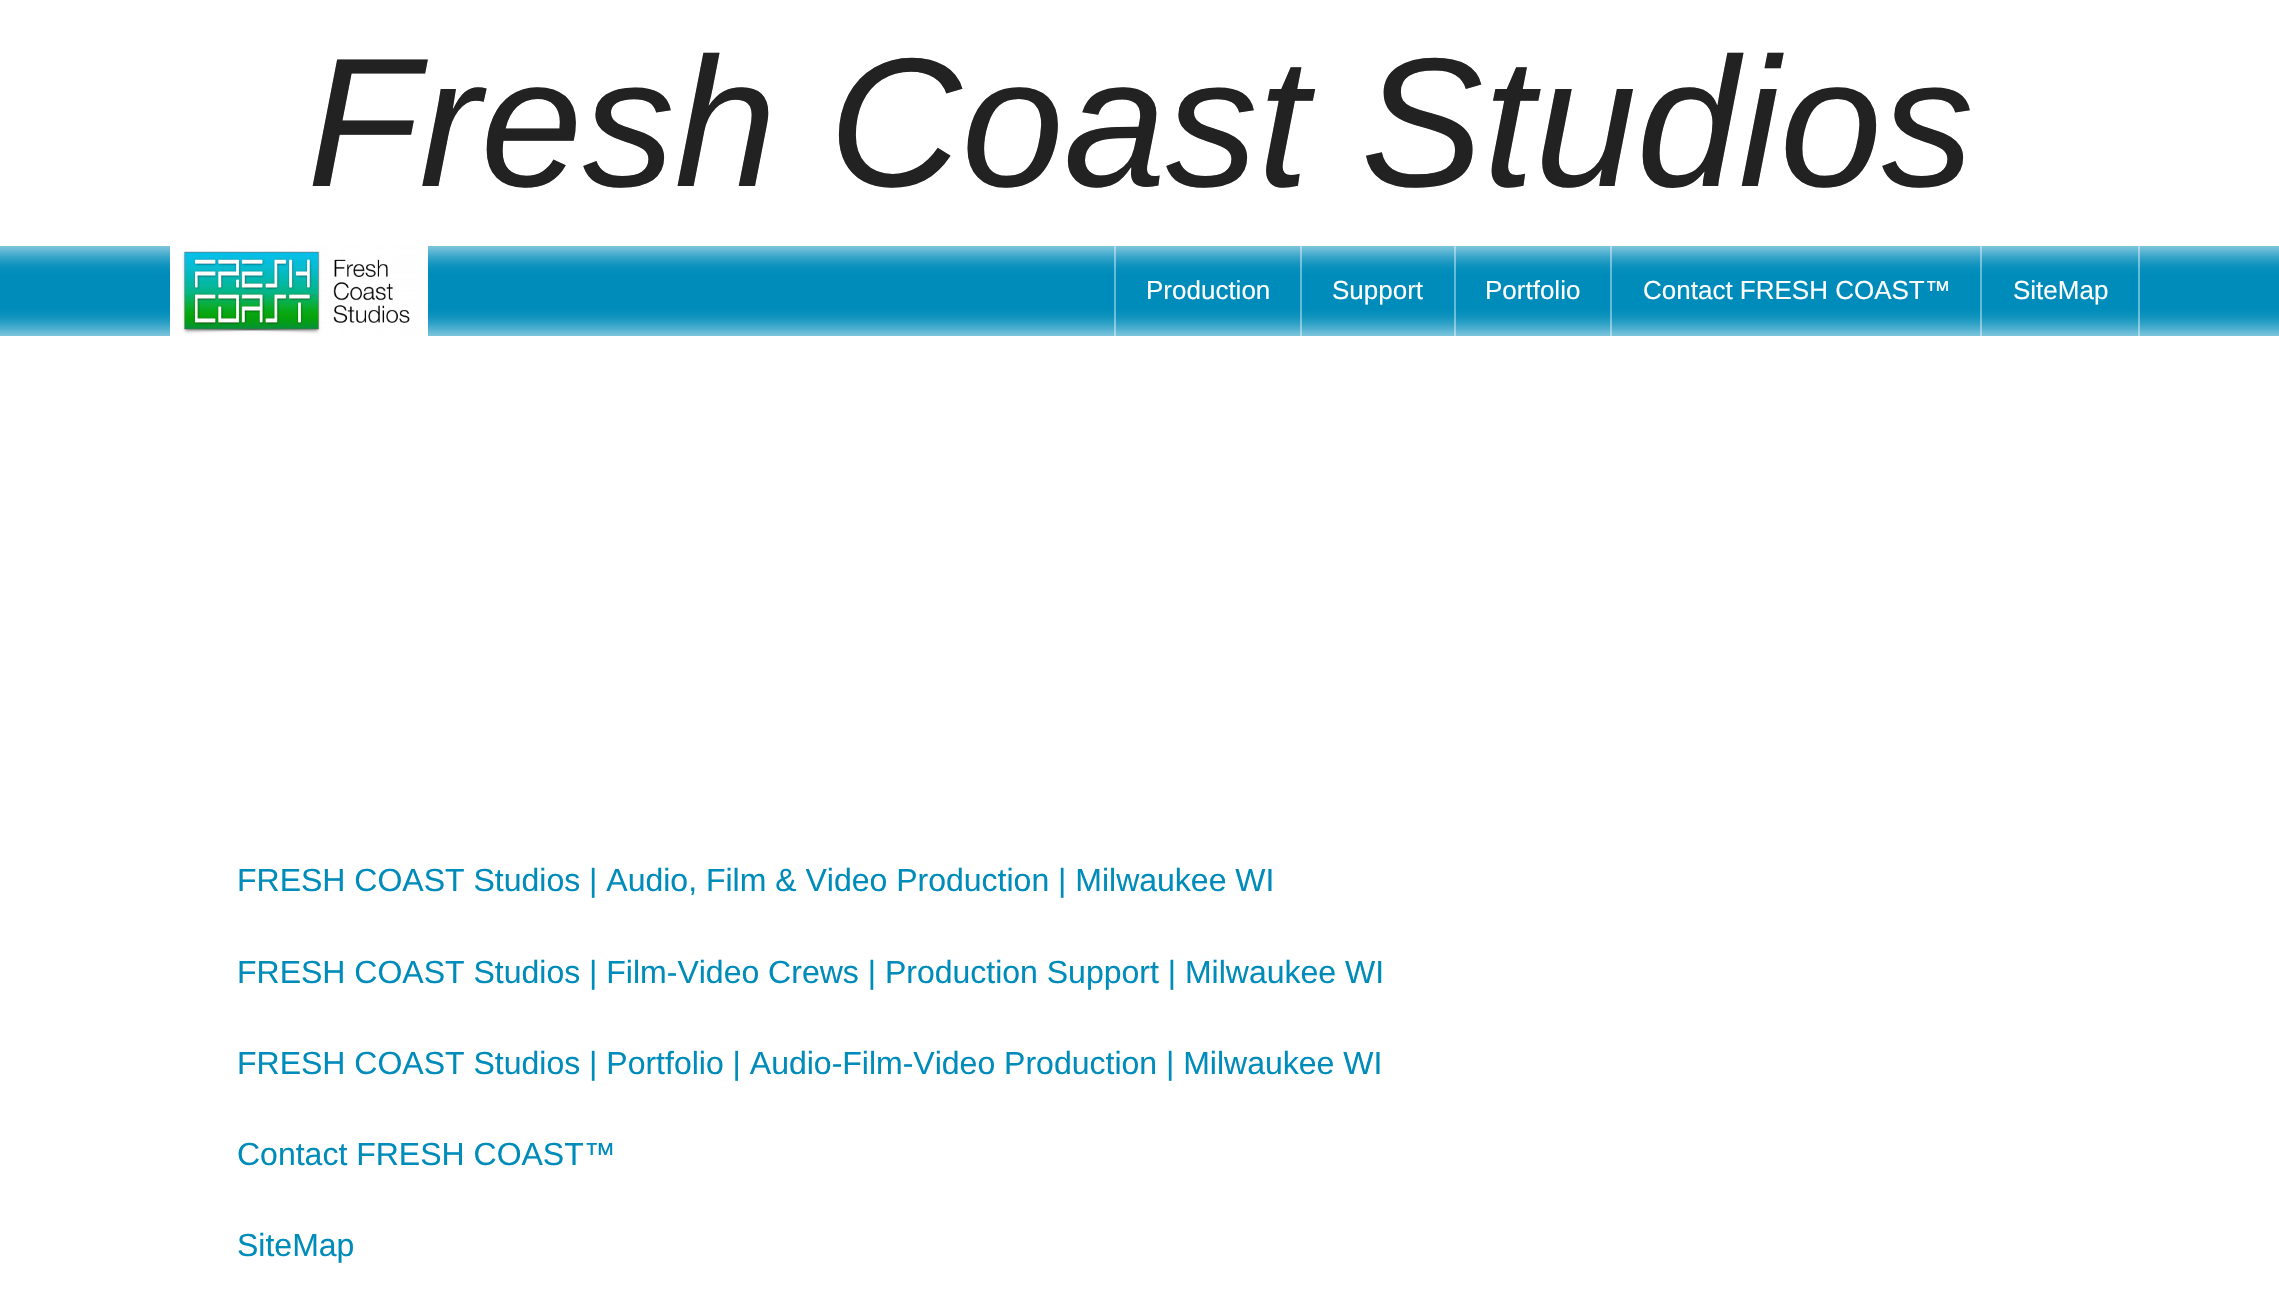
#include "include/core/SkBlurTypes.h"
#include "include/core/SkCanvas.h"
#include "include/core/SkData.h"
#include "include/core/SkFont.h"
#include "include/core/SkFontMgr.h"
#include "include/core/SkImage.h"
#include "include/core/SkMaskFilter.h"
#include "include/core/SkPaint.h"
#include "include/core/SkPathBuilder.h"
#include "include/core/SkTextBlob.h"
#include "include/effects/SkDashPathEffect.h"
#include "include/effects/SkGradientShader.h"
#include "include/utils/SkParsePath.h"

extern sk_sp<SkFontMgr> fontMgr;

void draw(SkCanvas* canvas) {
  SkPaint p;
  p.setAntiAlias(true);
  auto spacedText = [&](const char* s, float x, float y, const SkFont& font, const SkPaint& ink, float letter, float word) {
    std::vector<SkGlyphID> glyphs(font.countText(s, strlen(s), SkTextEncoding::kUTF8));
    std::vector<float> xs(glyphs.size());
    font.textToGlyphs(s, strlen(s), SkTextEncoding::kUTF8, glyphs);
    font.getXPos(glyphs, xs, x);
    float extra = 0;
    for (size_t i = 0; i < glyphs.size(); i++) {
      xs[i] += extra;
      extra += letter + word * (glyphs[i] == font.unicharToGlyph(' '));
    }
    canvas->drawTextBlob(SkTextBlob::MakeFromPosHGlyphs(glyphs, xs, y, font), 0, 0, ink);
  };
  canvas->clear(SK_ColorWHITE);
  p.setColor(SkColorSetRGB(0, 140, 186));
  canvas->drawRect(SkRect::MakeLTRB(0, 246, 2279, 336), p);
  canvas->drawImageRect(SkImages::DeferredFromEncodedData(SkData::MakeFromFileName("images/1.png")), SkRect::MakeLTRB(0, 246, 2279, 336), SkSamplingOptions());
  canvas->drawImageRect(SkImages::DeferredFromEncodedData(SkData::MakeFromFileName("images/2.png")), SkRect::MakeLTRB(170, 246, 428, 336), SkSamplingOptions());
  p.setColor(SkColorSetARGB(102, 255, 255, 255));
  canvas->drawRect(SkRect::MakeLTRB(1114, 246, 1116, 336), p);
  canvas->drawRect(SkRect::MakeLTRB(1300, 246, 1302, 336), p);
  canvas->drawRect(SkRect::MakeLTRB(1454, 246, 1456, 336), p);
  canvas->drawRect(SkRect::MakeLTRB(1610, 246, 1612, 336), p);
  canvas->drawRect(SkRect::MakeLTRB(1980, 246, 1982, 336), p);
  canvas->drawRect(SkRect::MakeLTRB(2138, 246, 2140, 336), p);
  SkFont font1(fontMgr->matchFamilyStyle("Liberation Sans", SkFontStyle::Italic()), 183.75f);
  font1.setSubpixel(true);
  p.setColor(SkColorSetRGB(34, 34, 34));
  spacedText("Fresh Coast Studios", 307, 186, font1, p, 0, 1);
  SkFont font2(fontMgr->matchFamilyStyle("Liberation Sans", SkFontStyle::Normal()), 26);
  font2.setSubpixel(true);
  p.setColor(SK_ColorWHITE);
  canvas->drawString("Production", 1146, 299, font2, p);
  canvas->drawString("Support", 1332, 299, font2, p);
  canvas->drawString("Portfolio", 1485, 299, font2, p);
  canvas->drawString("Contact FRESH COAST™", 1643, 299, font2, p);
  canvas->drawString("SiteMap", 2013, 299, font2, p);
  SkFont font3(fontMgr->matchFamilyStyle("Liberation Sans", SkFontStyle::Normal()), 32);
  font3.setSubpixel(true);
  p.setColor(SkColorSetRGB(0, 140, 186));
  canvas->drawString("FRESH COAST Studios | Audio, Film & Video Production | Milwaukee WI", 237, 891, font3, p);
  canvas->drawString("FRESH COAST Studios | Film-Video Crews | Production Support | Milwaukee WI", 237, 983, font3, p);
  canvas->drawString("FRESH COAST Studios | Portfolio | Audio-Film-Video Production | Milwaukee WI", 237, 1074, font3, p);
  canvas->drawString("Contact FRESH COAST™", 237, 1165, font3, p);
  canvas->drawString("SiteMap", 237, 1256, font3, p);
}
